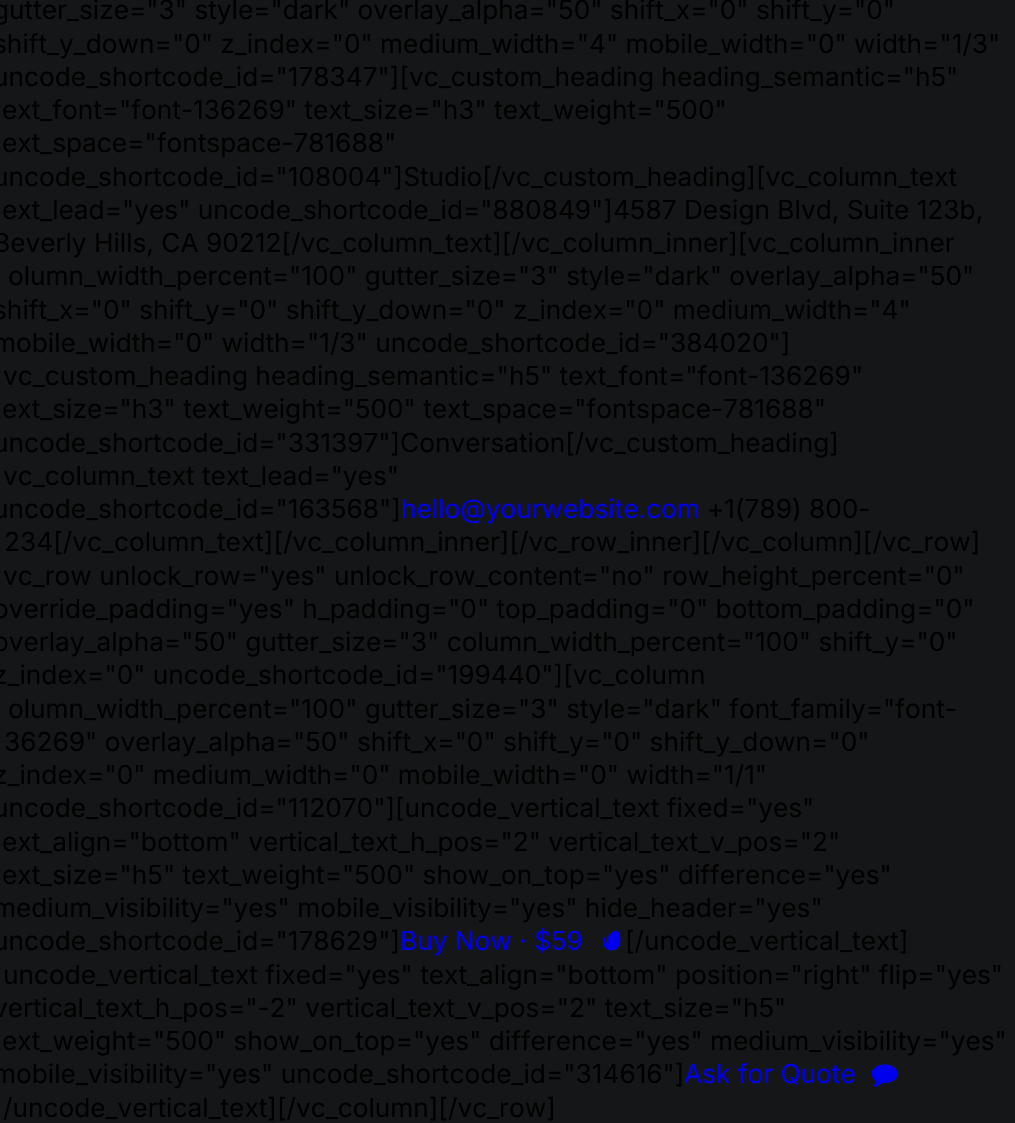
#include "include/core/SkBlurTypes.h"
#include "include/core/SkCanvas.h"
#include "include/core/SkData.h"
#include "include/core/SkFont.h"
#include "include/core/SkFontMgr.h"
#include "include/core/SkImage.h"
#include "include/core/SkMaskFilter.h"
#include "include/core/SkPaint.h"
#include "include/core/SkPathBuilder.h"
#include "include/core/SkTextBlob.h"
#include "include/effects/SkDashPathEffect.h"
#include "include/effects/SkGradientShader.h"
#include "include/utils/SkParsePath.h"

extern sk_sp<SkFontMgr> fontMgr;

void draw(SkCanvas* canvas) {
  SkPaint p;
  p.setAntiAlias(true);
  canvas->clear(SkColorSetRGB(20, 22, 24));
  canvas->drawImageRect(SkImages::DeferredFromEncodedData(SkData::MakeFromFileName("images/1.png")), SkRect::MakeLTRB(602, 930, 621, 951), SkSamplingOptions());
  canvas->drawImageRect(SkImages::DeferredFromEncodedData(SkData::MakeFromFileName("images/2.png")), SkRect::MakeLTRB(871, 1064, 898, 1087), SkSamplingOptions());
  SkFont font1(fontMgr->matchFamilyStyle("Inter", SkFontStyle::Normal()), 26.25f);
  font1.setSubpixel(true);
  p.setColor(SK_ColorBLACK);
  canvas->drawString("gutter_size=\"3\" style=\"dark\" overlay_alpha=\"50\" shift_x=\"0\" shift_y=\"0\"", -7, 19, font1, p);
  canvas->drawString("shift_y_down=\"0\" z_index=\"0\" medium_width=\"4\" mobile_width=\"0\" width=\"1/3\"", -7, 53, font1, p);
  canvas->drawString("uncode_shortcode_id=\"178347\"][vc_custom_heading heading_semantic=\"h5\"", -7, 86, font1, p);
  canvas->drawString("ext_font=\"font-136269\" text_size=\"h3\" text_weight=\"500\"", 2, 119, font1, p);
  canvas->drawString("ext_space=\"fontspace-781688\"", 2, 152, font1, p);
  canvas->drawString("uncode_shortcode_id=\"108004\"]Studio[/vc_custom_heading][vc_column_text", -7, 186, font1, p);
  canvas->drawString("ext_lead=\"yes\" uncode_shortcode_id=\"880849\"]4587 Design Blvd, Suite 123b,", 2, 219, font1, p);
  canvas->drawString("Beverly Hills, CA 90212[/vc_column_text][/vc_column_inner][vc_column_inner", -7, 252, font1, p);
  canvas->drawString("olumn_width_percent=\"100\" gutter_size=\"3\" style=\"dark\" overlay_alpha=\"50\"", 8, 285, font1, p);
  canvas->drawString("shift_x=\"0\" shift_y=\"0\" shift_y_down=\"0\" z_index=\"0\" medium_width=\"4\"", -7, 319, font1, p);
  canvas->drawString("mobile_width=\"0\" width=\"1/3\" uncode_shortcode_id=\"384020\"]", -7, 352, font1, p);
  canvas->drawString("vc_custom_heading heading_semantic=\"h5\" text_font=\"font-136269\"", 3, 385, font1, p);
  canvas->drawString("ext_size=\"h3\" text_weight=\"500\" text_space=\"fontspace-781688\"", 2, 418, font1, p);
  canvas->drawString("uncode_shortcode_id=\"331397\"]Conversation[/vc_custom_heading]", -7, 452, font1, p);
  canvas->drawString("vc_column_text text_lead=\"yes\"", 3, 485, font1, p);
  canvas->drawString("uncode_shortcode_id=\"163568\"]", -7, 518, font1, p);
  p.setColor(SkColorSetRGB(0, 0, 238));
  canvas->drawString("hello@yourwebsite.com", 401, 518, font1, p);
  p.setColor(SK_ColorBLACK);
  canvas->drawString("+1(789) 800-", 707, 518, font1, p);
  canvas->drawString("234[/vc_column_text][/vc_column_inner][/vc_row_inner][/vc_column][/vc_row]", 4, 551, font1, p);
  canvas->drawString("vc_row unlock_row=\"yes\" unlock_row_content=\"no\" row_height_percent=\"0\"", 3, 585, font1, p);
  canvas->drawString("override_padding=\"yes\" h_padding=\"0\" top_padding=\"0\" bottom_padding=\"0\"", -7, 618, font1, p);
  canvas->drawString("overlay_alpha=\"50\" gutter_size=\"3\" column_width_percent=\"100\" shift_y=\"0\"", -7, 651, font1, p);
  canvas->drawString("z_index=\"0\" uncode_shortcode_id=\"199440\"][vc_column", -7, 684, font1, p);
  canvas->drawString("olumn_width_percent=\"100\" gutter_size=\"3\" style=\"dark\" font_family=\"font-", 8, 718, font1, p);
  canvas->drawString("36269\" overlay_alpha=\"50\" shift_x=\"0\" shift_y=\"0\" shift_y_down=\"0\"", 4, 751, font1, p);
  canvas->drawString("z_index=\"0\" medium_width=\"0\" mobile_width=\"0\" width=\"1/1\"", -7, 784, font1, p);
  canvas->drawString("uncode_shortcode_id=\"112070\"][uncode_vertical_text fixed=\"yes\"", -7, 817, font1, p);
  canvas->drawString("ext_align=\"bottom\" vertical_text_h_pos=\"2\" vertical_text_v_pos=\"2\"", 2, 851, font1, p);
  canvas->drawString("ext_size=\"h5\" text_weight=\"500\" show_on_top=\"yes\" difference=\"yes\"", 2, 884, font1, p);
  canvas->drawString("medium_visibility=\"yes\" mobile_visibility=\"yes\" hide_header=\"yes\"", -7, 917, font1, p);
  canvas->drawString("uncode_shortcode_id=\"178629\"]", -7, 950, font1, p);
  p.setColor(SkColorSetRGB(0, 0, 238));
  canvas->drawString("Buy Now · $59", 400, 950, font1, p);
  p.setColor(SK_ColorBLACK);
  canvas->drawString("[/uncode_vertical_text]", 625, 950, font1, p);
  canvas->drawString("uncode_vertical_text fixed=\"yes\" text_align=\"bottom\" position=\"right\" flip=\"yes\"", 3, 984, font1, p);
  canvas->drawString("vertical_text_h_pos=\"-2\" vertical_text_v_pos=\"2\" text_size=\"h5\"", -7, 1017, font1, p);
  canvas->drawString("ext_weight=\"500\" show_on_top=\"yes\" difference=\"yes\" medium_visibility=\"yes\"", 2, 1050, font1, p);
  canvas->drawString("mobile_visibility=\"yes\" uncode_shortcode_id=\"314616\"]", -7, 1083, font1, p);
  p.setColor(SkColorSetRGB(0, 0, 238));
  canvas->drawString("Ask for Quote", 684, 1083, font1, p);
  p.setColor(SK_ColorBLACK);
  canvas->drawString("/uncode_vertical_text][/vc_column][/vc_row]", 3, 1117, font1, p);
}
